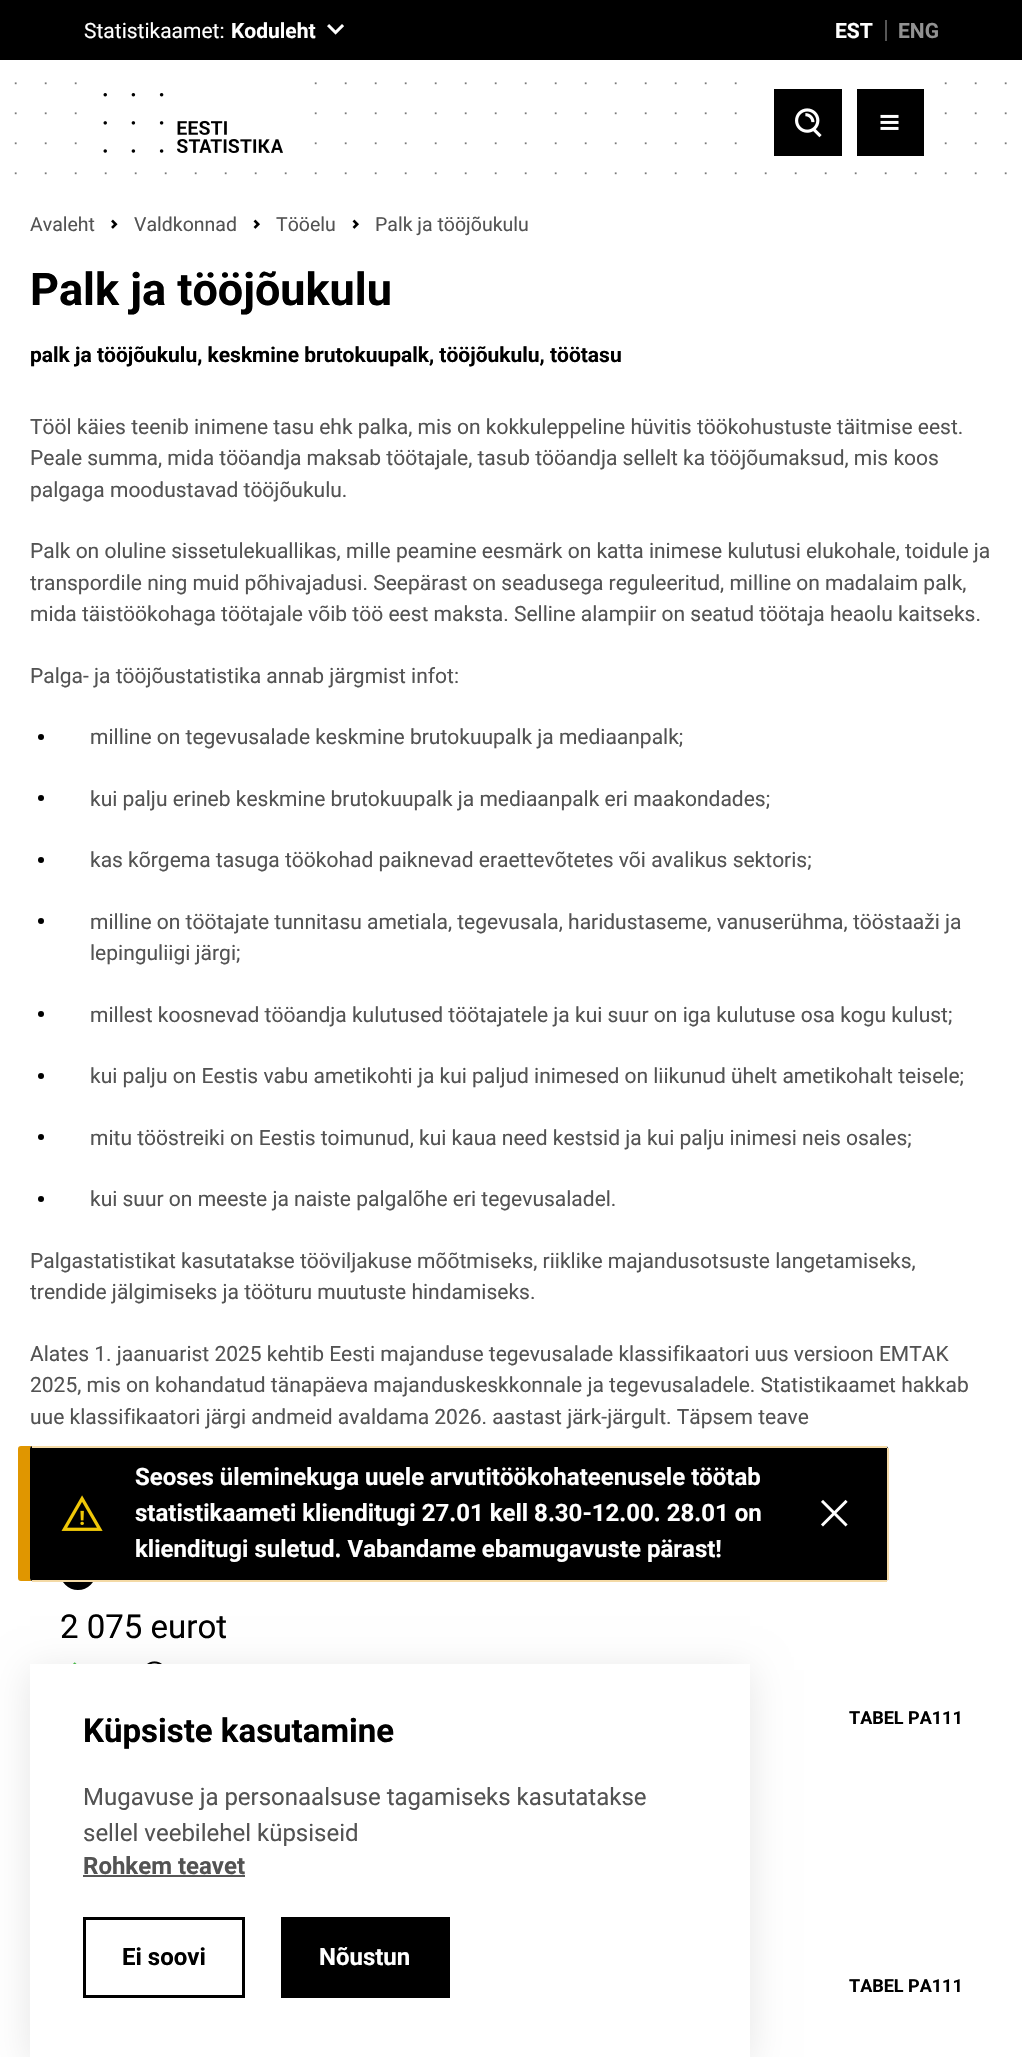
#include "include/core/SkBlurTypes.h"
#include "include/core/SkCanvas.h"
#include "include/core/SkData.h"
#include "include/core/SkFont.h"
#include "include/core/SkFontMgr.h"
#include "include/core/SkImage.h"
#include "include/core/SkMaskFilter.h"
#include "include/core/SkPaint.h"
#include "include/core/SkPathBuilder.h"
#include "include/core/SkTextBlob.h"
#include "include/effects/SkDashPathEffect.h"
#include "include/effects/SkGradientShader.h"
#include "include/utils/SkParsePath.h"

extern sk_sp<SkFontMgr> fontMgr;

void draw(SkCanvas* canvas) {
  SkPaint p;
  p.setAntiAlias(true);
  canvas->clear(SK_ColorWHITE);
  canvas->drawImageRect(SkImages::DeferredFromEncodedData(SkData::MakeFromFileName("images/1.png")), SkRect::MakeLTRB(14, 82, 1007, 175), SkSamplingOptions());
  p.setColor(SK_ColorBLACK);
  canvas->drawRect(SkRect::MakeLTRB(0, 0, 1022, 60), p);
  canvas->drawImageRect(SkImages::DeferredFromEncodedData(SkData::MakeFromFileName("images/2.png")), SkRect::MakeLTRB(327, 24, 344, 35), SkSamplingOptions());
  p.setColor(SkColorSetRGB(86, 86, 86));
  canvas->drawRect(SkRect::MakeLTRB(885, 20, 887, 41), p);
  canvas->drawImageRect(SkImages::DeferredFromEncodedData(SkData::MakeFromFileName("images/3.png")), SkRect::MakeLTRB(103, 82, 287, 153), SkSamplingOptions());
  p.setColor(SK_ColorWHITE);
  canvas->drawRect(SkRect::MakeLTRB(764, 82, 827, 145), p);
  p.setColor(SK_ColorBLACK);
  canvas->drawRect(SkRect::MakeLTRB(774, 89, 842, 156), p);
  canvas->drawImageRect(SkImages::DeferredFromEncodedData(SkData::MakeFromFileName("images/4.png")), SkRect::MakeLTRB(795, 108, 822, 138), SkSamplingOptions());
  p.setColor(SK_ColorWHITE);
  canvas->drawRect(SkRect::MakeLTRB(854, 82, 917, 145), p);
  p.setColor(SK_ColorBLACK);
  canvas->drawRect(SkRect::MakeLTRB(857, 89, 924, 156), p);
  canvas->drawImageRect(SkImages::DeferredFromEncodedData(SkData::MakeFromFileName("images/5.png")), SkRect::MakeLTRB(880, 114, 899, 130), SkSamplingOptions());
  canvas->drawImageRect(SkImages::DeferredFromEncodedData(SkData::MakeFromFileName("images/6.png")), SkRect::MakeLTRB(111, 219, 118, 229), SkSamplingOptions());
  canvas->drawImageRect(SkImages::DeferredFromEncodedData(SkData::MakeFromFileName("images/7.png")), SkRect::MakeLTRB(253, 219, 260, 229), SkSamplingOptions());
  canvas->drawImageRect(SkImages::DeferredFromEncodedData(SkData::MakeFromFileName("images/7.png")), SkRect::MakeLTRB(352, 219, 359, 229), SkSamplingOptions());
  canvas->drawCircle(41, 737, 3, p);
  canvas->drawCircle(41, 798, 3, p);
  canvas->drawCircle(41, 860, 3, p);
  canvas->drawCircle(41, 921, 3, p);
  canvas->drawCircle(41, 1014, 3, p);
  canvas->drawCircle(41, 1076, 3, p);
  canvas->drawCircle(41, 1137, 3, p);
  canvas->drawCircle(41, 1199, 3, p);
  canvas->drawCircle(78, 1572, 16.5f, p);
  p.setStyle(SkPaint::kStroke_Style);
  p.setStrokeWidth(3);
  canvas->drawCircle(78, 1572, 16.5f, p);
  canvas->drawImageRect(SkImages::DeferredFromEncodedData(SkData::MakeFromFileName("images/8.png")), SkRect::MakeLTRB(73, 1662, 77, 1664), SkSamplingOptions());
  canvas->drawImageRect(SkImages::DeferredFromEncodedData(SkData::MakeFromFileName("images/9.png")), SkRect::MakeLTRB(147, 1661, 162, 1664), SkSamplingOptions());
  p.setStyle(SkPaint::kFill_Style);
  p.setColor(SkColorSetRGB(224, 150, 0));
  canvas->drawPath(SkPathBuilder().moveTo(21, 1446).cubicTo(19, 1446, 18, 1447, 18, 1449).lineTo(18, 1578).cubicTo(18, 1580, 19, 1581, 21, 1581).lineTo(33, 1581).cubicTo(31, 1581, 30, 1580, 30, 1578).lineTo(30, 1449).cubicTo(30, 1447, 31, 1446, 33, 1446).close().detach(), p);
  p.setColor(SK_ColorBLACK);
  canvas->drawRoundRect(SkRect::MakeLTRB(30, 1446, 888, 1581), 3, 3, p);
  p.setColor(SkColorSetRGB(244, 218, 166));
  canvas->drawRect(SkRect::MakeLTRB(32, 1446, 887, 1448), p);
  canvas->drawRect(SkRect::MakeLTRB(887, 1448, 889, 1580), p);
  canvas->drawRect(SkRect::MakeLTRB(32, 1580, 887, 1582), p);
  canvas->drawImageRect(SkImages::DeferredFromEncodedData(SkData::MakeFromFileName("images/10.png")), SkRect::MakeLTRB(61, 1495, 103, 1531), SkSamplingOptions());
  canvas->drawImageRect(SkImages::DeferredFromEncodedData(SkData::MakeFromFileName("images/11.png")), SkRect::MakeLTRB(821, 1499, 848, 1527), SkSamplingOptions());
  p.setColor(SkColorSetARGB(26, 0, 0, 0));
  p.setMaskFilter(SkMaskFilter::MakeBlur(kNormal_SkBlurStyle, 18));
  canvas->drawRect(SkRect::MakeLTRB(30, 1670, 750, 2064), p);
  p.setMaskFilter(nullptr);
  p.setColor(SK_ColorWHITE);
  canvas->drawRect(SkRect::MakeLTRB(30, 1664, 750, 2057), p);
  p.setColor(SkColorSetRGB(86, 86, 86));
  canvas->drawRect(SkRect::MakeLTRB(83, 1875, 245, 1877), p);
  p.setStyle(SkPaint::kStroke_Style);
  p.setColor(SK_ColorBLACK);
  canvas->drawRect(SkRect::MakeLTRB(84.5f, 1918.5f, 243.5f, 1996.5f), p);
  p.setStyle(SkPaint::kFill_Style);
  canvas->drawRect(SkRect::MakeLTRB(281, 1917, 450, 1998), p);
  SkFont font1(fontMgr->matchFamilyStyle("Roboto", SkFontStyle::Normal()), 21);
  font1.setSubpixel(true);
  p.setColor(SK_ColorWHITE);
  canvas->drawString("Statistikaamet:", 84, 38, font1, p);
  SkFont font2(fontMgr->matchFamilyStyle("Roboto", SkFontStyle::Bold()), 21);
  font2.setSubpixel(true);
  canvas->drawString("Koduleht", 231, 38, font2, p);
  canvas->drawString("EST", 835, 38, font2, p);
  p.setColor(SkColorSetRGB(146, 146, 146));
  canvas->drawString("ENG", 898, 38, font2, p);
  SkFont font3(fontMgr->matchFamilyStyle("Roboto", SkFontStyle::Normal()), 19.5f);
  font3.setSubpixel(true);
  p.setColor(SkColorSetRGB(83, 83, 83));
  canvas->drawString("Avaleht", 30, 231, font3, p);
  canvas->drawString("Valdkonnad", 134, 231, font3, p);
  canvas->drawString("Tööelu", 276, 231, font3, p);
  canvas->drawString("Palk ja tööjõukulu", 375, 231, font3, p);
  SkFont font4(fontMgr->matchFamilyStyle("Roboto", SkFontStyle::Bold()), 45);
  font4.setSubpixel(true);
  p.setColor(SK_ColorBLACK);
  canvas->drawString("Palk ja tööjõukulu", 30, 305, font4, p);
  canvas->drawString("palk ja tööjõukulu, keskmine brutokuupalk, tööjõukulu, töötasu", 30, 362, font2, p);
  p.setColor(SkColorSetRGB(83, 83, 83));
  canvas->drawString("Tööl käies teenib inimene tasu ehk palka, mis on kokkuleppeline hüvitis töökohustuste täitmise eest.", 30, 434, font1, p);
  canvas->drawString("Peale summa, mida tööandja maksab töötajale, tasub tööandja sellelt ka tööjõumaksud, mis koos", 30, 465, font1, p);
  canvas->drawString("palgaga moodustavad tööjõukulu.", 30, 497, font1, p);
  canvas->drawString("Palk on oluline sissetulekuallikas, mille peamine eesmärk on katta inimese kulutusi elukohale, toidule ja", 30, 558, font1, p);
  canvas->drawString("transpordile ning muid põhivajadusi. Seepärast on seadusega reguleeritud, milline on madalaim palk,", 30, 590, font1, p);
  canvas->drawString("mida täistöökohaga töötajale võib töö eest maksta. Selline alampiir on seatud töötaja heaolu kaitseks.", 30, 621, font1, p);
  canvas->drawString("Palga- ja tööjõustatistika annab järgmist infot:", 30, 683, font1, p);
  canvas->drawString("milline on tegevusalade keskmine brutokuupalk ja mediaanpalk;", 90, 744, font1, p);
  canvas->drawString("kui palju erineb keskmine brutokuupalk ja mediaanpalk eri maakondades;", 90, 806, font1, p);
  canvas->drawString("kas kõrgema tasuga töökohad paiknevad eraettevõtetes või avalikus sektoris;", 90, 867, font1, p);
  canvas->drawString("milline on töötajate tunnitasu ametiala, tegevusala, haridustaseme, vanuserühma, tööstaaži ja", 90, 929, font1, p);
  canvas->drawString("lepinguliigi järgi;", 90, 960, font1, p);
  canvas->drawString("millest koosnevad tööandja kulutused töötajatele ja kui suur on iga kulutuse osa kogu kulust;", 90, 1022, font1, p);
  canvas->drawString("kui palju on Eestis vabu ametikohti ja kui paljud inimesed on liikunud ühelt ametikohalt teisele;", 90, 1083, font1, p);
  canvas->drawString("mitu tööstreiki on Eestis toimunud, kui kaua need kestsid ja kui palju inimesi neis osales;", 90, 1145, font1, p);
  canvas->drawString("kui suur on meeste ja naiste palgalõhe eri tegevusaladel.", 90, 1206, font1, p);
  canvas->drawString("Palgastatistikat kasutatakse tööviljakuse mõõtmiseks, riiklike majandusotsuste langetamiseks,", 30, 1268, font1, p);
  canvas->drawString("trendide jälgimiseks ja tööturu muutuste hindamiseks.", 30, 1299, font1, p);
  canvas->drawString("Alates 1. jaanuarist 2025 kehtib Eesti majanduse tegevusalade klassifikaatori uus versioon EMTAK", 30, 1361, font1, p);
  canvas->drawString("2025, mis on kohandatud tänapäeva majanduskeskkonnale ja tegevusaladele. Statistikaamet hakkab", 30, 1392, font1, p);
  canvas->drawString("uue klassifikaatori järgi andmeid avaldama 2026. aastast järk-järgult. Täpsem teave", 30, 1424, font1, p);
  SkFont font5(fontMgr->matchFamilyStyle("Roboto", SkFontStyle::Normal()), 33);
  font5.setSubpixel(true);
  p.setColor(SK_ColorBLACK);
  canvas->drawString("2 075 eurot", 60, 1638, font5, p);
  SkFont font6(fontMgr->matchFamilyStyle("Roboto", SkFontStyle::Bold()), 18);
  font6.setSubpixel(true);
  canvas->drawString("TABEL PA111", 849, 1724, font6, p);
  canvas->drawString("TABEL PA111", 849, 1992, font6, p);
  SkFont font7(fontMgr->matchFamilyStyle("Roboto", SkFontStyle::Bold()), 24);
  font7.setSubpixel(true);
  p.setColor(SK_ColorWHITE);
  canvas->drawString("Seoses üleminekuga uuele arvutitöökohateenusele töötab", 135, 1485, font7, p);
  canvas->drawString("statistikaameti klienditugi 27.01 kell 8.30-12.00. 28.01 on", 135, 1521, font7, p);
  canvas->drawString("klienditugi suletud. Vabandame ebamugavuste pärast!", 135, 1557, font7, p);
  SkFont font8(fontMgr->matchFamilyStyle("Roboto", SkFontStyle::Bold()), 33);
  font8.setSubpixel(true);
  p.setColor(SK_ColorBLACK);
  canvas->drawString("Küpsiste kasutamine", 83, 1742, font8, p);
  SkFont font9(fontMgr->matchFamilyStyle("Roboto", SkFontStyle::Normal()), 24);
  font9.setSubpixel(true);
  p.setColor(SkColorSetRGB(83, 83, 83));
  canvas->drawString("Mugavuse ja personaalsuse tagamiseks kasutatakse", 83, 1805, font9, p);
  canvas->drawString("sellel veebilehel küpsiseid", 83, 1841, font9, p);
  canvas->drawString("Rohkem teavet", 83, 1874, font7, p);
  p.setColor(SK_ColorBLACK);
  canvas->drawString("Ei soovi", 122, 1965, font7, p);
  p.setColor(SK_ColorWHITE);
  canvas->drawString("Nõustun", 319, 1965, font7, p);
}
